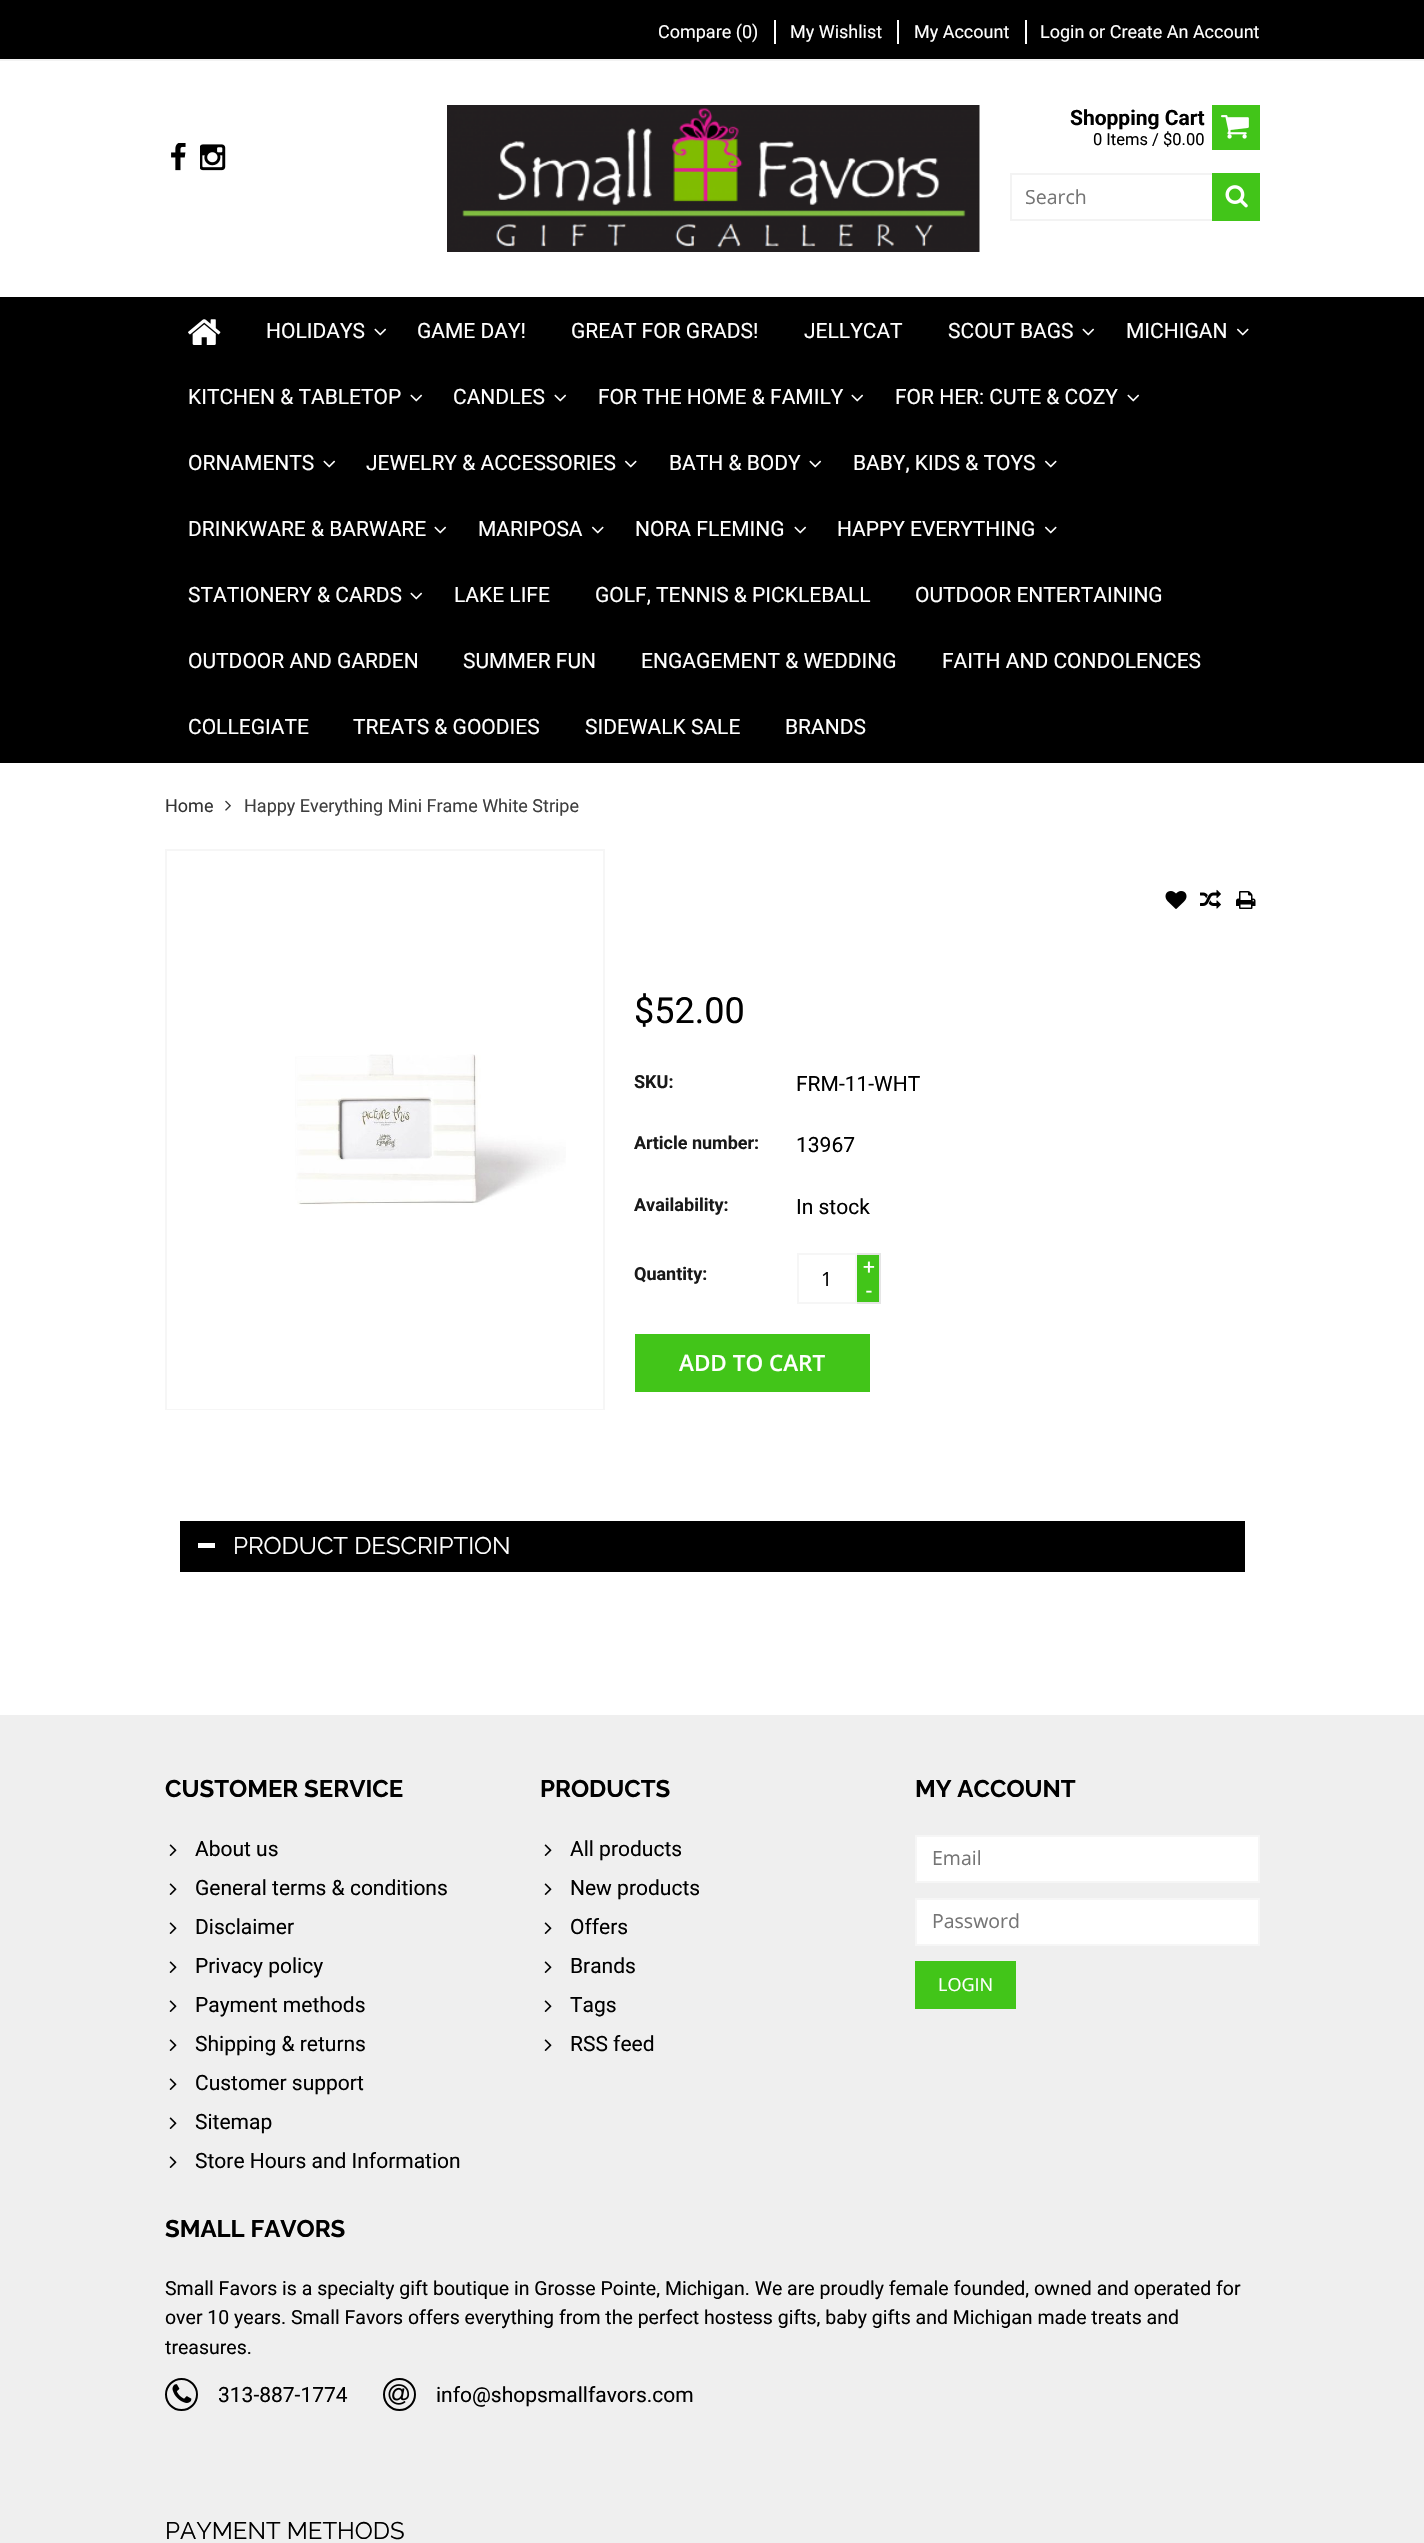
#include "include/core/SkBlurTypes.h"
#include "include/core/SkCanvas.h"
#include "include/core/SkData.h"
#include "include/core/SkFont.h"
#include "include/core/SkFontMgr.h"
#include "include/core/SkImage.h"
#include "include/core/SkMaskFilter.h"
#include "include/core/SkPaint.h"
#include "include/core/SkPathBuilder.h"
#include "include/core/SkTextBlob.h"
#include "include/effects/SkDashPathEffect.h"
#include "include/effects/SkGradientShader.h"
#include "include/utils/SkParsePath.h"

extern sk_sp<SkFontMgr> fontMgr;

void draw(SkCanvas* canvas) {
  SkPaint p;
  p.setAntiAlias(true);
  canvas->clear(SK_ColorWHITE);
  p.setColor(SK_ColorBLACK);
  canvas->drawRect(SkRect::MakeLTRB(0, 0, 1424, 59), p);
  p.setColor(SkColorSetRGB(243, 243, 243));
  canvas->drawRect(SkRect::MakeLTRB(0, 59, 1424, 61), p);
  p.setColor(SK_ColorWHITE);
  canvas->drawRect(SkRect::MakeLTRB(774, 20, 776, 44), p);
  canvas->drawRect(SkRect::MakeLTRB(897, 20, 899, 44), p);
  canvas->drawRect(SkRect::MakeLTRB(1025, 20, 1027, 44), p);
  canvas->drawImageRect(SkImages::DeferredFromEncodedData(SkData::MakeFromFileName("images/1.png")), SkRect::MakeLTRB(171, 143, 186, 171), SkSamplingOptions());
  canvas->drawImageRect(SkImages::DeferredFromEncodedData(SkData::MakeFromFileName("images/2.png")), SkRect::MakeLTRB(200, 144, 226, 171), SkSamplingOptions());
  canvas->drawImageRect(SkImages::DeferredFromEncodedData(SkData::MakeFromFileName("images/3.png")), SkRect::MakeLTRB(447, 105, 980, 252), SkSamplingOptions());
  p.setColor(SkColorSetRGB(66, 197, 25));
  canvas->drawRect(SkRect::MakeLTRB(1212, 105, 1260, 150), p);
  canvas->drawImageRect(SkImages::DeferredFromEncodedData(SkData::MakeFromFileName("images/4.png")), SkRect::MakeLTRB(1221, 115, 1249, 139), SkSamplingOptions());
  p.setStyle(SkPaint::kStroke_Style);
  p.setStrokeWidth(2);
  p.setColor(SkColorSetRGB(243, 243, 243));
  canvas->drawRect(SkRect::MakeLTRB(1011, 174, 1259, 220), p);
  p.setStyle(SkPaint::kFill_Style);
  p.setColor(SkColorSetRGB(66, 197, 25));
  canvas->drawRect(SkRect::MakeLTRB(1212, 173, 1260, 221), p);
  canvas->drawImageRect(SkImages::DeferredFromEncodedData(SkData::MakeFromFileName("images/5.png")), SkRect::MakeLTRB(1225, 185, 1248, 208), SkSamplingOptions());
  p.setColor(SK_ColorBLACK);
  canvas->drawRect(SkRect::MakeLTRB(0, 297, 1424, 763), p);
  canvas->drawImageRect(SkImages::DeferredFromEncodedData(SkData::MakeFromFileName("images/6.png")), SkRect::MakeLTRB(188, 319, 221, 345), SkSamplingOptions());
  canvas->drawImageRect(SkImages::DeferredFromEncodedData(SkData::MakeFromFileName("images/7.png")), SkRect::MakeLTRB(374, 328, 387, 336), SkSamplingOptions());
  canvas->drawImageRect(SkImages::DeferredFromEncodedData(SkData::MakeFromFileName("images/7.png")), SkRect::MakeLTRB(1082, 328, 1095, 336), SkSamplingOptions());
  canvas->drawImageRect(SkImages::DeferredFromEncodedData(SkData::MakeFromFileName("images/8.png")), SkRect::MakeLTRB(1236, 328, 1249, 336), SkSamplingOptions());
  canvas->drawImageRect(SkImages::DeferredFromEncodedData(SkData::MakeFromFileName("images/7.png")), SkRect::MakeLTRB(410, 394, 423, 402), SkSamplingOptions());
  canvas->drawImageRect(SkImages::DeferredFromEncodedData(SkData::MakeFromFileName("images/7.png")), SkRect::MakeLTRB(554, 394, 567, 402), SkSamplingOptions());
  canvas->drawImageRect(SkImages::DeferredFromEncodedData(SkData::MakeFromFileName("images/7.png")), SkRect::MakeLTRB(851, 394, 864, 402), SkSamplingOptions());
  canvas->drawImageRect(SkImages::DeferredFromEncodedData(SkData::MakeFromFileName("images/7.png")), SkRect::MakeLTRB(1127, 394, 1140, 402), SkSamplingOptions());
  canvas->drawImageRect(SkImages::DeferredFromEncodedData(SkData::MakeFromFileName("images/7.png")), SkRect::MakeLTRB(323, 460, 336, 468), SkSamplingOptions());
  canvas->drawImageRect(SkImages::DeferredFromEncodedData(SkData::MakeFromFileName("images/8.png")), SkRect::MakeLTRB(624, 460, 637, 468), SkSamplingOptions());
  canvas->drawImageRect(SkImages::DeferredFromEncodedData(SkData::MakeFromFileName("images/7.png")), SkRect::MakeLTRB(809, 460, 822, 468), SkSamplingOptions());
  canvas->drawImageRect(SkImages::DeferredFromEncodedData(SkData::MakeFromFileName("images/8.png")), SkRect::MakeLTRB(1044, 460, 1057, 468), SkSamplingOptions());
  canvas->drawImageRect(SkImages::DeferredFromEncodedData(SkData::MakeFromFileName("images/7.png")), SkRect::MakeLTRB(434, 526, 447, 534), SkSamplingOptions());
  canvas->drawImageRect(SkImages::DeferredFromEncodedData(SkData::MakeFromFileName("images/8.png")), SkRect::MakeLTRB(591, 526, 604, 534), SkSamplingOptions());
  canvas->drawImageRect(SkImages::DeferredFromEncodedData(SkData::MakeFromFileName("images/7.png")), SkRect::MakeLTRB(794, 526, 807, 534), SkSamplingOptions());
  canvas->drawImageRect(SkImages::DeferredFromEncodedData(SkData::MakeFromFileName("images/8.png")), SkRect::MakeLTRB(1044, 526, 1057, 534), SkSamplingOptions());
  canvas->drawImageRect(SkImages::DeferredFromEncodedData(SkData::MakeFromFileName("images/7.png")), SkRect::MakeLTRB(410, 592, 423, 600), SkSamplingOptions());
  canvas->drawImageRect(SkImages::DeferredFromEncodedData(SkData::MakeFromFileName("images/9.png")), SkRect::MakeLTRB(225, 800, 231, 811), SkSamplingOptions());
  p.setStyle(SkPaint::kStroke_Style);
  p.setColor(SkColorSetRGB(246, 246, 246));
  canvas->drawRect(SkRect::MakeLTRB(166, 850, 604, 1409), p);
  canvas->drawImageRect(SkImages::DeferredFromEncodedData(SkData::MakeFromFileName("images/10.png")), SkRect::MakeLTRB(295, 1054, 566, 1205), SkSamplingOptions());
  p.setStyle(SkPaint::kFill_Style);
  p.setColor(SK_ColorWHITE);
  canvas->drawRect(SkRect::MakeLTRB(167, 1408, 603, 1409), p);
  canvas->drawImageRect(SkImages::DeferredFromEncodedData(SkData::MakeFromFileName("images/11.png")), SkRect::MakeLTRB(1165, 891, 1187, 909), SkSamplingOptions());
  canvas->drawImageRect(SkImages::DeferredFromEncodedData(SkData::MakeFromFileName("images/12.png")), SkRect::MakeLTRB(1200, 889, 1221, 909), SkSamplingOptions());
  canvas->drawImageRect(SkImages::DeferredFromEncodedData(SkData::MakeFromFileName("images/13.png")), SkRect::MakeLTRB(1236, 891, 1256, 909), SkSamplingOptions());
  p.setStyle(SkPaint::kStroke_Style);
  p.setColor(SkColorSetRGB(246, 246, 246));
  canvas->drawRect(SkRect::MakeLTRB(798, 1254, 856, 1303), p);
  p.setStyle(SkPaint::kFill_Style);
  p.setColor(SkColorSetRGB(66, 197, 25));
  canvas->drawRect(SkRect::MakeLTRB(857, 1255, 879, 1302), p);
  p.setColor(SkColorSetRGB(229, 229, 229));
  canvas->drawRect(SkRect::MakeLTRB(857, 1253, 881, 1255), p);
  canvas->drawRect(SkRect::MakeLTRB(879, 1253, 881, 1304), p);
  canvas->drawRect(SkRect::MakeLTRB(857, 1302, 881, 1304), p);
  p.setColor(SkColorSetRGB(66, 197, 25));
  canvas->drawRect(SkRect::MakeLTRB(635, 1334, 870, 1392), p);
  p.setColor(SK_ColorBLACK);
  canvas->drawRect(SkRect::MakeLTRB(180, 1521, 1245, 1572), p);
  p.setColor(SK_ColorWHITE);
  canvas->drawRect(SkRect::MakeLTRB(198, 1543, 215, 1548), p);
  p.setColor(SkColorSetRGB(239, 239, 239));
  canvas->drawRect(SkRect::MakeLTRB(0, 1715, 1424, 2543), p);
  canvas->drawImageRect(SkImages::DeferredFromEncodedData(SkData::MakeFromFileName("images/14.png")), SkRect::MakeLTRB(169, 1844, 177, 1856), SkSamplingOptions());
  canvas->drawImageRect(SkImages::DeferredFromEncodedData(SkData::MakeFromFileName("images/14.png")), SkRect::MakeLTRB(169, 1883, 177, 1895), SkSamplingOptions());
  canvas->drawImageRect(SkImages::DeferredFromEncodedData(SkData::MakeFromFileName("images/14.png")), SkRect::MakeLTRB(169, 1922, 177, 1934), SkSamplingOptions());
  canvas->drawImageRect(SkImages::DeferredFromEncodedData(SkData::MakeFromFileName("images/14.png")), SkRect::MakeLTRB(169, 1961, 177, 1973), SkSamplingOptions());
  canvas->drawImageRect(SkImages::DeferredFromEncodedData(SkData::MakeFromFileName("images/14.png")), SkRect::MakeLTRB(169, 2000, 177, 2012), SkSamplingOptions());
  canvas->drawImageRect(SkImages::DeferredFromEncodedData(SkData::MakeFromFileName("images/14.png")), SkRect::MakeLTRB(169, 2039, 177, 2051), SkSamplingOptions());
  canvas->drawImageRect(SkImages::DeferredFromEncodedData(SkData::MakeFromFileName("images/14.png")), SkRect::MakeLTRB(169, 2078, 177, 2090), SkSamplingOptions());
  canvas->drawImageRect(SkImages::DeferredFromEncodedData(SkData::MakeFromFileName("images/14.png")), SkRect::MakeLTRB(169, 2117, 177, 2129), SkSamplingOptions());
  canvas->drawImageRect(SkImages::DeferredFromEncodedData(SkData::MakeFromFileName("images/14.png")), SkRect::MakeLTRB(169, 2156, 177, 2168), SkSamplingOptions());
  canvas->drawImageRect(SkImages::DeferredFromEncodedData(SkData::MakeFromFileName("images/14.png")), SkRect::MakeLTRB(544, 1844, 552, 1856), SkSamplingOptions());
  canvas->drawImageRect(SkImages::DeferredFromEncodedData(SkData::MakeFromFileName("images/14.png")), SkRect::MakeLTRB(544, 1883, 552, 1895), SkSamplingOptions());
  canvas->drawImageRect(SkImages::DeferredFromEncodedData(SkData::MakeFromFileName("images/14.png")), SkRect::MakeLTRB(544, 1922, 552, 1934), SkSamplingOptions());
  canvas->drawImageRect(SkImages::DeferredFromEncodedData(SkData::MakeFromFileName("images/14.png")), SkRect::MakeLTRB(544, 1961, 552, 1973), SkSamplingOptions());
  canvas->drawImageRect(SkImages::DeferredFromEncodedData(SkData::MakeFromFileName("images/14.png")), SkRect::MakeLTRB(544, 2000, 552, 2012), SkSamplingOptions());
  canvas->drawImageRect(SkImages::DeferredFromEncodedData(SkData::MakeFromFileName("images/14.png")), SkRect::MakeLTRB(544, 2039, 552, 2051), SkSamplingOptions());
  p.setColor(SK_ColorWHITE);
  canvas->drawRect(SkRect::MakeLTRB(916, 1836, 1259, 1882), p);
  p.setStyle(SkPaint::kStroke_Style);
  p.setColor(SkColorSetRGB(246, 246, 246));
  canvas->drawRect(SkRect::MakeLTRB(916, 1836, 1259, 1882), p);
  p.setStyle(SkPaint::kFill_Style);
  p.setColor(SK_ColorWHITE);
  canvas->drawRect(SkRect::MakeLTRB(916, 1899, 1259, 1945), p);
  p.setStyle(SkPaint::kStroke_Style);
  p.setColor(SkColorSetRGB(246, 246, 246));
  canvas->drawRect(SkRect::MakeLTRB(916, 1899, 1259, 1945), p);
  p.setStyle(SkPaint::kFill_Style);
  p.setColor(SkColorSetRGB(66, 197, 25));
  canvas->drawRect(SkRect::MakeLTRB(915, 1961, 1016, 2009), p);
  p.setStyle(SkPaint::kStroke_Style);
  p.setColor(SK_ColorBLACK);
  canvas->drawCircle(181.5f, 2394.5f, 15.5f, p);
  canvas->drawImageRect(SkImages::DeferredFromEncodedData(SkData::MakeFromFileName("images/15.png")), SkRect::MakeLTRB(172, 2384, 192, 2403), SkSamplingOptions());
  canvas->drawCircle(399.5f, 2394.5f, 15.5f, p);
  canvas->drawImageRect(SkImages::DeferredFromEncodedData(SkData::MakeFromFileName("images/16.png")), SkRect::MakeLTRB(388, 2384, 410, 2405), SkSamplingOptions());
  SkFont font1(fontMgr->matchFamilyStyle("Roboto", SkFontStyle::Normal()), 18);
  font1.setSubpixel(true);
  p.setStyle(SkPaint::kFill_Style);
  p.setColor(SK_ColorWHITE);
  canvas->drawString("Compare (0)", 658, 38, font1, p);
  canvas->drawString("My Wishlist", 790, 38, font1, p);
  canvas->drawString("My Account", 914, 38, font1, p);
  canvas->drawString("Login or Create An Account", 1040, 38, font1, p);
  SkFont font2(fontMgr->matchFamilyStyle("Roboto", SkFontStyle::Bold()), 21);
  font2.setSubpixel(true);
  p.setColor(SK_ColorBLACK);
  canvas->drawString("Shopping Cart", 1070, 125, font2, p);
  SkFont font3(fontMgr->matchFamilyStyle("Roboto", SkFontStyle::Normal()), 16.5f);
  font3.setSubpixel(true);
  canvas->drawString("0 Items / $0.00", 1093, 145, font3, p);
  SkFont font4(fontMgr->matchFamilyStyle("Open Sans", SkFontStyle::Normal()), 19.5f);
  font4.setSubpixel(true);
  p.setColor(SkColorSetRGB(117, 117, 117));
  canvas->drawString("Search", 1025, 204, font4, p);
  SkFont font5(fontMgr->matchFamilyStyle("Roboto", SkFontStyle::Normal()), 21);
  font5.setSubpixel(true);
  p.setColor(SK_ColorWHITE);
  canvas->drawString("HOLIDAYS", 266, 338, font5, p);
  canvas->drawString("GAME DAY!", 417, 338, font5, p);
  canvas->drawString("GREAT FOR GRADS!", 571, 338, font5, p);
  canvas->drawString("JELLYCAT", 804, 338, font5, p);
  canvas->drawString("SCOUT BAGS", 948, 338, font5, p);
  canvas->drawString("MICHIGAN", 1126, 338, font5, p);
  canvas->drawString("KITCHEN & TABLETOP", 188, 404, font5, p);
  canvas->drawString("CANDLES", 453, 404, font5, p);
  canvas->drawString("FOR THE HOME & FAMILY", 598, 404, font5, p);
  canvas->drawString("FOR HER: CUTE & COZY", 895, 404, font5, p);
  canvas->drawString("ORNAMENTS", 188, 470, font5, p);
  canvas->drawString("JEWELRY & ACCESSORIES", 366, 470, font5, p);
  canvas->drawString("BATH & BODY", 669, 470, font5, p);
  canvas->drawString("BABY, KIDS & TOYS", 853, 470, font5, p);
  canvas->drawString("DRINKWARE & BARWARE", 188, 536, font5, p);
  canvas->drawString("MARIPOSA", 478, 536, font5, p);
  canvas->drawString("NORA FLEMING", 635, 536, font5, p);
  canvas->drawString("HAPPY EVERYTHING", 837, 536, font5, p);
  canvas->drawString("STATIONERY & CARDS", 188, 602, font5, p);
  canvas->drawString("LAKE LIFE", 454, 602, font5, p);
  canvas->drawString("GOLF, TENNIS & PICKLEBALL", 595, 602, font5, p);
  canvas->drawString("OUTDOOR ENTERTAINING", 915, 602, font5, p);
  canvas->drawString("OUTDOOR AND GARDEN", 188, 668, font5, p);
  canvas->drawString("SUMMER FUN", 463, 668, font5, p);
  canvas->drawString("ENGAGEMENT & WEDDING", 641, 668, font5, p);
  canvas->drawString("FAITH AND CONDOLENCES", 942, 668, font5, p);
  canvas->drawString("COLLEGIATE", 188, 734, font5, p);
  canvas->drawString("TREATS & GOODIES", 353, 734, font5, p);
  canvas->drawString("SIDEWALK SALE", 585, 734, font5, p);
  canvas->drawString("BRANDS", 785, 734, font5, p);
  p.setColor(SkColorSetRGB(51, 51, 51));
  canvas->drawString("Home", 165, 812, font1, p);
  p.setColor(SkColorSetRGB(63, 63, 63));
  canvas->drawString("Happy Everything Mini Frame White Stripe", 244, 812, font1, p);
  SkFont font6(fontMgr->matchFamilyStyle("Roboto", SkFontStyle::Normal()), 36);
  font6.setSubpixel(true);
  p.setColor(SK_ColorBLACK);
  canvas->drawString("$52.00", 634, 1023, font6, p);
  SkFont font7(fontMgr->matchFamilyStyle("Roboto", SkFontStyle::Bold()), 18);
  font7.setSubpixel(true);
  p.setColor(SkColorSetRGB(25, 25, 25));
  canvas->drawString("SKU:", 634, 1088, font7, p);
  p.setColor(SK_ColorBLACK);
  canvas->drawString("FRM-11-WHT", 796, 1091, font5, p);
  p.setColor(SkColorSetRGB(25, 25, 25));
  canvas->drawString("Article number:", 634, 1149, font7, p);
  p.setColor(SK_ColorBLACK);
  canvas->drawString("13967", 796, 1152, font5, p);
  p.setColor(SkColorSetRGB(25, 25, 25));
  canvas->drawString("Availability:", 634, 1211, font7, p);
  p.setColor(SK_ColorBLACK);
  canvas->drawString("In stock", 796, 1214, font5, p);
  p.setColor(SkColorSetRGB(25, 25, 25));
  canvas->drawString("Quantity:", 634, 1280, font7, p);
  p.setColor(SK_ColorBLACK);
  canvas->drawString("1", 821, 1286, font4, p);
  p.setColor(SK_ColorWHITE);
  canvas->drawString("+", 863, 1274, font5, p);
  canvas->drawString("-", 866, 1298, font5, p);
  SkFont font8(fontMgr->matchFamilyStyle("Open Sans", SkFontStyle(600, SkFontStyle::kNormal_Width, SkFontStyle::kUpright_Slant)), 22.5f);
  font8.setSubpixel(true);
  canvas->drawString("ADD TO CART", 679, 1371, font8, p);
  SkFont font9(fontMgr->matchFamilyStyle("Raleway", SkFontStyle::Normal()), 24);
  font9.setSubpixel(true);
  canvas->drawString("PRODUCT DESCRIPTION", 233, 1554, font9, p);
  SkFont font10(fontMgr->matchFamilyStyle("Raleway", SkFontStyle::Bold()), 24);
  font10.setSubpixel(true);
  p.setColor(SK_ColorBLACK);
  canvas->drawString("CUSTOMER SERVICE", 165, 1797, font10, p);
  canvas->drawString("About us", 195, 1856, font5, p);
  canvas->drawString("General terms & conditions", 195, 1895, font5, p);
  canvas->drawString("Disclaimer", 195, 1934, font5, p);
  canvas->drawString("Privacy policy", 195, 1973, font5, p);
  canvas->drawString("Payment methods", 195, 2012, font5, p);
  canvas->drawString("Shipping & returns", 195, 2051, font5, p);
  canvas->drawString("Customer support", 195, 2090, font5, p);
  canvas->drawString("Sitemap", 195, 2129, font5, p);
  canvas->drawString("Store Hours and Information", 195, 2168, font5, p);
  canvas->drawString("PRODUCTS", 540, 1797, font10, p);
  canvas->drawString("All products", 570, 1856, font5, p);
  canvas->drawString("New products", 570, 1895, font5, p);
  canvas->drawString("Offers", 570, 1934, font5, p);
  canvas->drawString("Brands", 570, 1973, font5, p);
  canvas->drawString("Tags", 570, 2012, font5, p);
  canvas->drawString("RSS feed", 570, 2051, font5, p);
  canvas->drawString("MY ACCOUNT", 915, 1797, font10, p);
  p.setColor(SkColorSetRGB(117, 117, 117));
  canvas->drawString("Email", 932, 1865, font4, p);
  canvas->drawString("Password", 932, 1928, font4, p);
  SkFont font11(fontMgr->matchFamilyStyle("Open Sans", SkFontStyle::Normal()), 18);
  font11.setSubpixel(true);
  p.setColor(SK_ColorWHITE);
  canvas->drawString("LOGIN", 938, 1991, font11, p);
  p.setColor(SK_ColorBLACK);
  canvas->drawString("SMALL FAVORS", 165, 2237, font10, p);
  SkFont font12(fontMgr->matchFamilyStyle("Roboto", SkFontStyle::Normal()), 19.5f);
  font12.setSubpixel(true);
  canvas->drawString("Small Favors is a specialty gift boutique in Grosse Pointe, Michigan. We are proudly female founded, owned and operated for", 165, 2295, font12, p);
  canvas->drawString("over 10 years. Small Favors offers everything from the perfect hostess gifts, baby gifts and Michigan made treats and", 165, 2324, font12, p);
  canvas->drawString("treasures.", 165, 2354, font12, p);
  canvas->drawString("313-887-1774", 218, 2402, font5, p);
  canvas->drawString("info@shopsmallfavors.com", 436, 2402, font5, p);
  canvas->drawString("PAYMENT METHODS", 165, 2539, font9, p);
}
